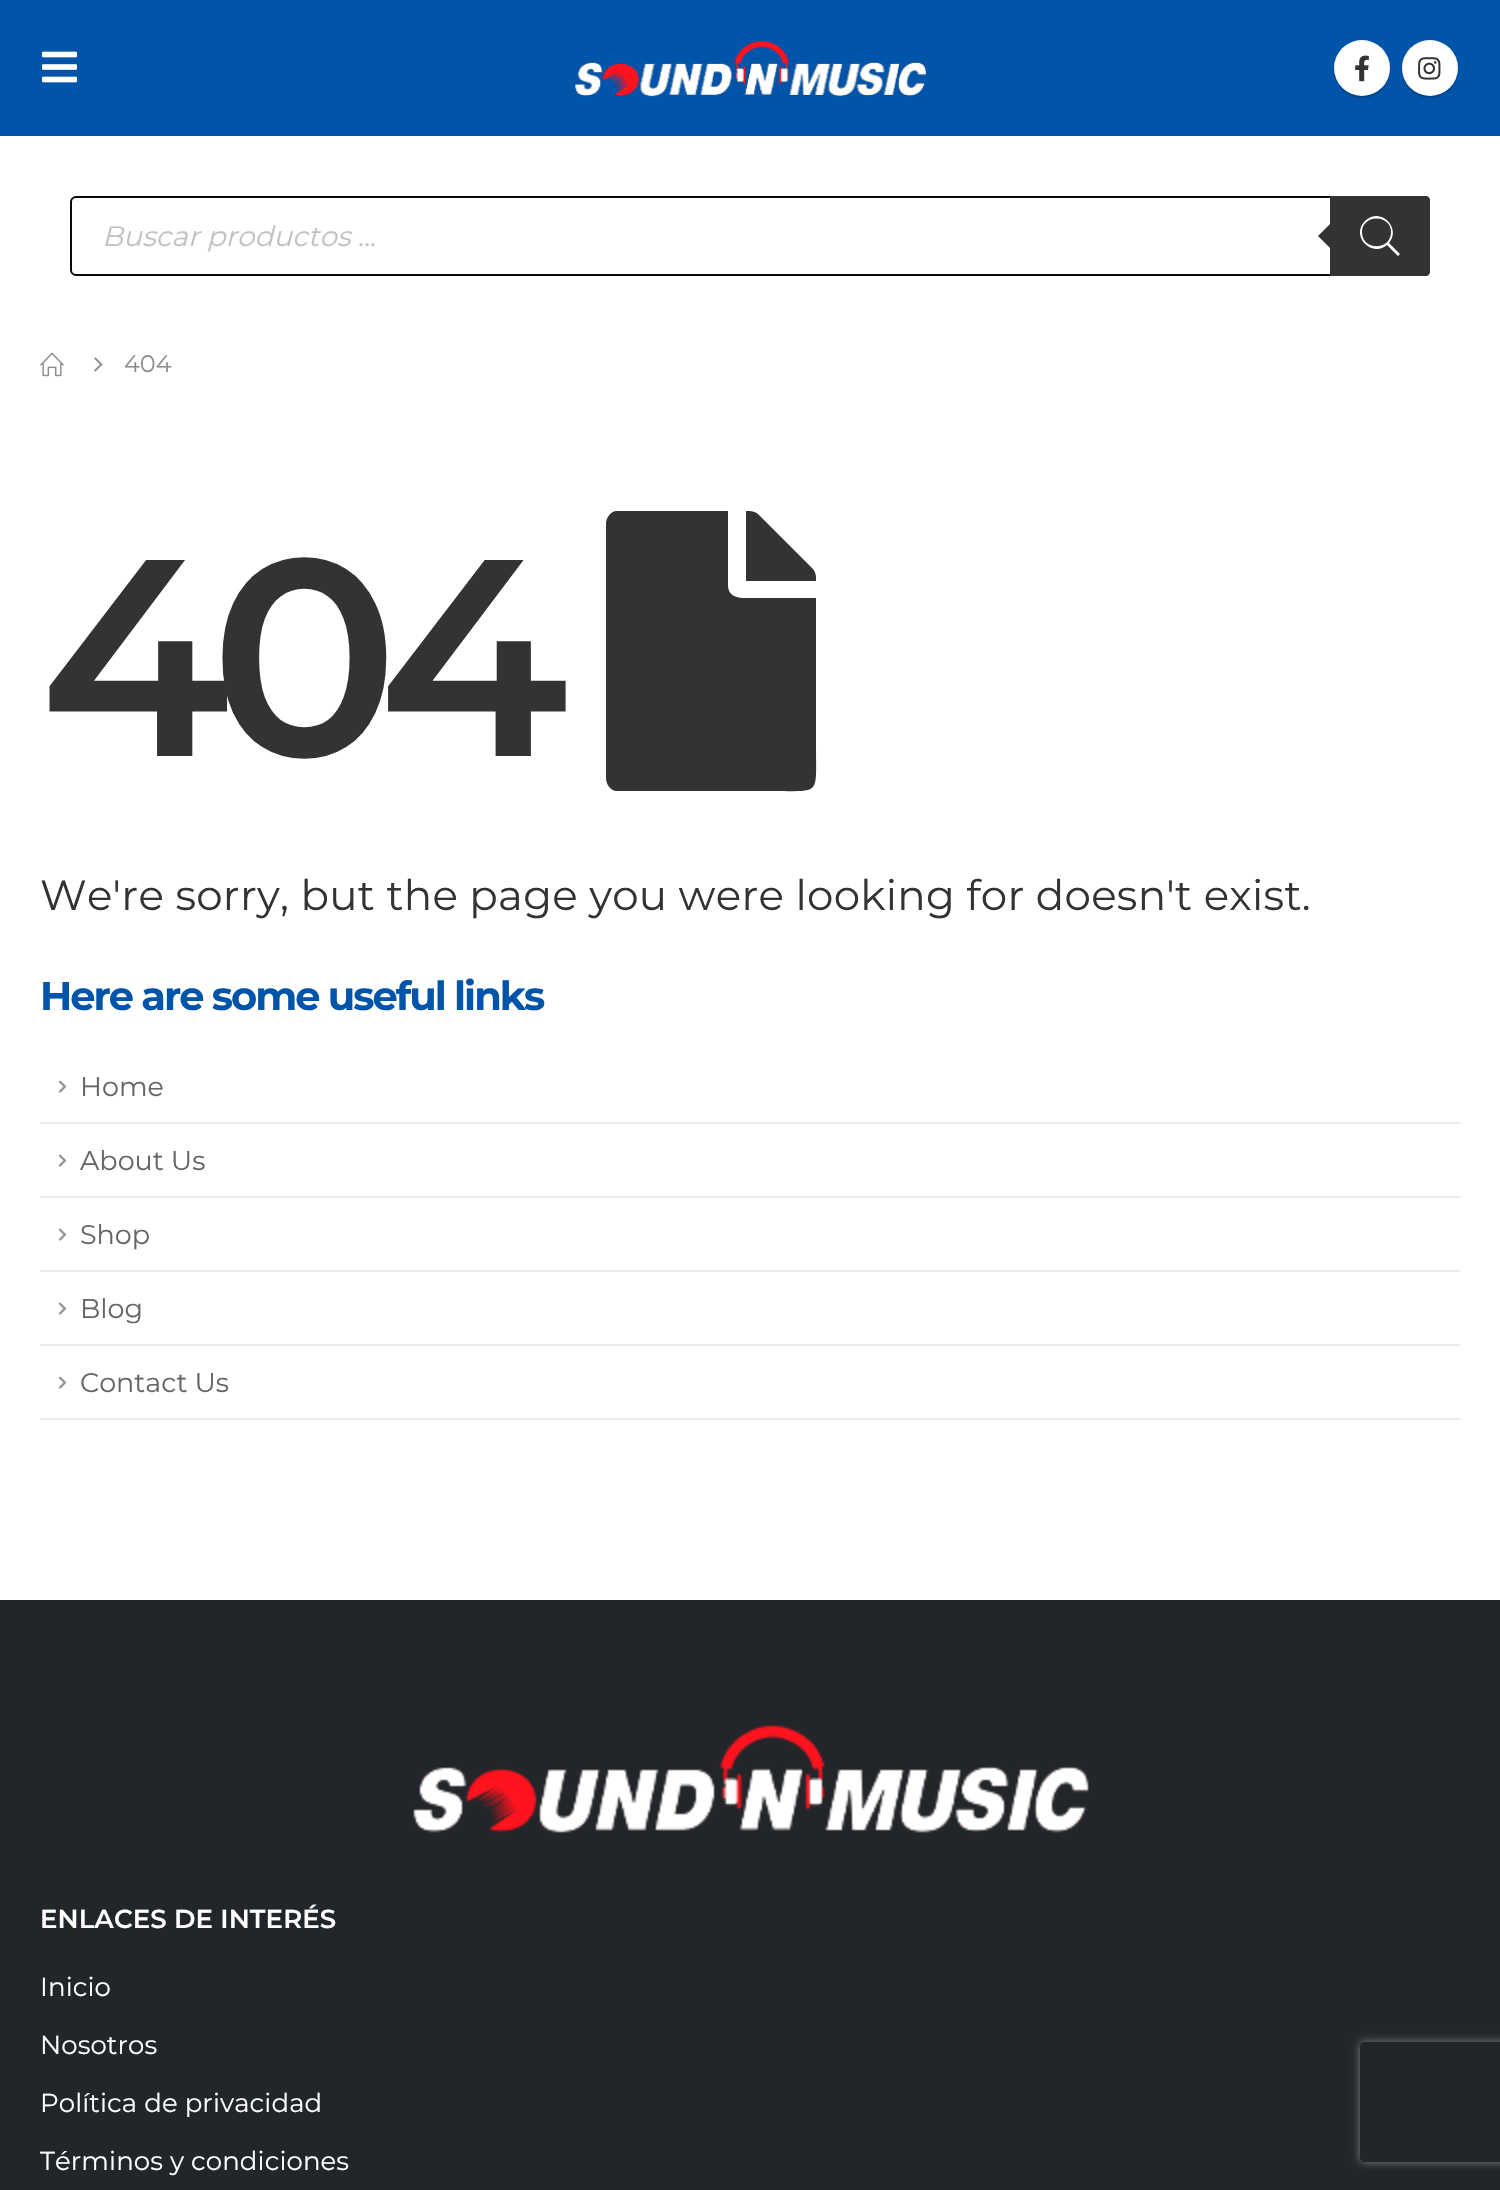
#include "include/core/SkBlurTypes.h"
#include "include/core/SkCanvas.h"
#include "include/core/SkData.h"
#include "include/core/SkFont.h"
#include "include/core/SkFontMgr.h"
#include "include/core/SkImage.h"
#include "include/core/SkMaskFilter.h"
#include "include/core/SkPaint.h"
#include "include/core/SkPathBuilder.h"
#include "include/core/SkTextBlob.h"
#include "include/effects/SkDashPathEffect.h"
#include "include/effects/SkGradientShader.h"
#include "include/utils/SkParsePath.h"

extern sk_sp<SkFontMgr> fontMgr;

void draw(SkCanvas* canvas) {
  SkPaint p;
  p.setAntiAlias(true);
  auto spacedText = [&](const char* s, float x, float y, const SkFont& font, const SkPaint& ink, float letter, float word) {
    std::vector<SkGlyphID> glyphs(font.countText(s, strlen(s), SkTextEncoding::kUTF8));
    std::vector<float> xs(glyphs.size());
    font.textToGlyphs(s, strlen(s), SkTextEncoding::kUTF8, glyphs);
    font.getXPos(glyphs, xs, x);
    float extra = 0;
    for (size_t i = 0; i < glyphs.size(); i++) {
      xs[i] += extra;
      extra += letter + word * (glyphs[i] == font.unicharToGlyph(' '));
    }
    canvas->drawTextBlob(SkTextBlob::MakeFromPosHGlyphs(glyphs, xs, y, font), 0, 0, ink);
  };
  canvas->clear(SK_ColorWHITE);
  p.setColor(SkColorSetRGB(0, 84, 170));
  canvas->drawRect(SkRect::MakeLTRB(0, 0, 1500, 136), p);
  canvas->drawImageRect(SkImages::DeferredFromEncodedData(SkData::MakeFromFileName("images/1.png")), SkRect::MakeLTRB(42, 51, 77, 83), SkSamplingOptions());
  canvas->drawImageRect(SkImages::DeferredFromEncodedData(SkData::MakeFromFileName("images/2.png")), SkRect::MakeLTRB(575, 40, 926, 97), SkSamplingOptions());
  p.setColor(SkColorSetARGB(51, 0, 0, 0));
  p.setMaskFilter(SkMaskFilter::MakeBlur(kNormal_SkBlurStyle, 1));
  canvas->drawRoundRect(SkRect::MakeLTRB(1334, 42, 1390, 98), 28, 28, p);
  p.setMaskFilter(nullptr);
  p.setColor(SK_ColorWHITE);
  canvas->drawCircle(1362, 68, 28, p);
  canvas->drawImageRect(SkImages::DeferredFromEncodedData(SkData::MakeFromFileName("images/3.png")), SkRect::MakeLTRB(1355, 55, 1369, 82), SkSamplingOptions());
  p.setColor(SkColorSetARGB(51, 0, 0, 0));
  p.setMaskFilter(SkMaskFilter::MakeBlur(kNormal_SkBlurStyle, 1));
  canvas->drawRoundRect(SkRect::MakeLTRB(1402, 42, 1458, 98), 28, 28, p);
  p.setMaskFilter(nullptr);
  p.setColor(SK_ColorWHITE);
  canvas->drawCircle(1430, 68, 28, p);
  canvas->drawImageRect(SkImages::DeferredFromEncodedData(SkData::MakeFromFileName("images/4.png")), SkRect::MakeLTRB(1418, 57, 1441, 80), SkSamplingOptions());
  p.setStyle(SkPaint::kStroke_Style);
  p.setStrokeWidth(2);
  p.setColor(SkColorSetRGB(10, 10, 10));
  canvas->drawRoundRect(SkRect::MakeLTRB(71, 197, 1429, 275), 5, 5, p);
  p.setStyle(SkPaint::kFill_Style);
  p.setColor(SkColorSetRGB(51, 51, 51));
  canvas->drawPath(SkPathBuilder().moveTo(1330, 196).lineTo(1426, 196).cubicTo(1428, 196, 1430, 198, 1430, 200).lineTo(1430, 272).cubicTo(1430, 274, 1428, 276, 1426, 276).lineTo(1330, 276).close().detach(), p);
  canvas->drawPath(SkPathBuilder().moveTo(1334, 220).lineTo(1334, 252).lineTo(1318, 236).close().detach(), p);
  p.setColor(SK_ColorWHITE);
  canvas->drawPath(SkPathBuilder().moveTo(1400, 254).lineTo(1389, 243).cubicTo(1402, 228, 1380, 206, 1365, 221).cubicTo(1350, 236, 1372, 258, 1387, 245).lineTo(1398, 256).close().moveTo(1362, 232).cubicTo(1362, 214, 1391, 214, 1391, 232).cubicTo(1391, 251, 1362, 251, 1362, 232).close().detach(), p);
  canvas->drawImageRect(SkImages::DeferredFromEncodedData(SkData::MakeFromFileName("images/5.png")), SkRect::MakeLTRB(40, 352, 64, 377), SkSamplingOptions());
  canvas->drawImageRect(SkImages::DeferredFromEncodedData(SkData::MakeFromFileName("images/6.png")), SkRect::MakeLTRB(94, 357, 103, 372), SkSamplingOptions());
  p.setColor(SkColorSetRGB(51, 51, 51));
  canvas->drawPath(SkPathBuilder().moveTo(728, 585).cubicTo(728, 600, 744, 598, 754, 598).lineTo(816, 598).lineTo(816, 748).cubicTo(816, 796, 821, 791, 772, 791).lineTo(616, 791).cubicTo(610, 790, 606, 784, 606, 778).lineTo(606, 524).cubicTo(606, 518, 610, 512, 616, 511).lineTo(728, 511).close().moveTo(816, 578).lineTo(816, 581).lineTo(746, 581).lineTo(746, 511).lineTo(749, 511).cubicTo(753, 511, 756, 512, 759, 515).lineTo(812, 568).cubicTo(815, 571, 816, 574, 816, 578).close().detach(), p);
  p.setColor(SkColorSetRGB(235, 235, 235));
  canvas->drawRect(SkRect::MakeLTRB(40, 1122, 1460, 1124), p);
  canvas->drawImageRect(SkImages::DeferredFromEncodedData(SkData::MakeFromFileName("images/7.png")), SkRect::MakeLTRB(58, 1080, 67, 1093), SkSamplingOptions());
  canvas->drawRect(SkRect::MakeLTRB(40, 1196, 1460, 1198), p);
  canvas->drawImageRect(SkImages::DeferredFromEncodedData(SkData::MakeFromFileName("images/7.png")), SkRect::MakeLTRB(58, 1154, 67, 1167), SkSamplingOptions());
  canvas->drawRect(SkRect::MakeLTRB(40, 1270, 1460, 1272), p);
  canvas->drawImageRect(SkImages::DeferredFromEncodedData(SkData::MakeFromFileName("images/7.png")), SkRect::MakeLTRB(58, 1228, 67, 1241), SkSamplingOptions());
  canvas->drawRect(SkRect::MakeLTRB(40, 1344, 1460, 1346), p);
  canvas->drawImageRect(SkImages::DeferredFromEncodedData(SkData::MakeFromFileName("images/7.png")), SkRect::MakeLTRB(58, 1302, 67, 1315), SkSamplingOptions());
  canvas->drawRect(SkRect::MakeLTRB(40, 1418, 1460, 1420), p);
  canvas->drawImageRect(SkImages::DeferredFromEncodedData(SkData::MakeFromFileName("images/7.png")), SkRect::MakeLTRB(58, 1376, 67, 1389), SkSamplingOptions());
  p.setColor(SkColorSetRGB(34, 37, 41));
  canvas->drawRect(SkRect::MakeLTRB(0, 1600, 1500, 2190), p);
  canvas->drawImageRect(SkImages::DeferredFromEncodedData(SkData::MakeFromFileName("images/8.png")), SkRect::MakeLTRB(413, 1725, 1089, 1833), SkSamplingOptions());
  canvas->save();
  canvas->clipPath(SkPathBuilder(SkPathFillType::kEvenOdd).moveTo(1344, 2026).lineTo(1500, 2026).lineTo(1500, 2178).lineTo(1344, 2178).close().moveTo(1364, 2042).lineTo(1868, 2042).cubicTo(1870, 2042, 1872, 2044, 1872, 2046).lineTo(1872, 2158).cubicTo(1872, 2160, 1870, 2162, 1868, 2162).lineTo(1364, 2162).cubicTo(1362, 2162, 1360, 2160, 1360, 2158).lineTo(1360, 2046).cubicTo(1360, 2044, 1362, 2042, 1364, 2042).close().detach(), true);
  p.setColor(SkColorSetRGB(128, 128, 128));
  p.setMaskFilter(SkMaskFilter::MakeBlur(kNormal_SkBlurStyle, 5));
  canvas->drawRoundRect(SkRect::MakeLTRB(1360, 2042, 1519, 2162), 4, 4, p);
  p.setMaskFilter(nullptr);
  canvas->restore();
  SkFont font1(fontMgr->matchFamilyStyle("Montserrat", SkFontStyle::Italic()), 28);
  font1.setSubpixel(true);
  p.setColor(SkColorSetRGB(194, 194, 194));
  canvas->drawString("Buscar productos ...", 102, 246, font1, p);
  SkFont font2(fontMgr->matchFamilyStyle("Montserrat", SkFontStyle::Normal()), 24);
  font2.setSubpixel(true);
  p.setColor(SkColorSetRGB(142, 142, 142));
  canvas->drawString("404", 124, 372, font2, p);
  SkFont font3(fontMgr->matchFamilyStyle("Montserrat", SkFontStyle(600, SkFontStyle::kNormal_Width, SkFontStyle::kUpright_Slant)), 280);
  font3.setSubpixel(true);
  p.setColor(SkColorSetRGB(51, 51, 51));
  spacedText("404", 40, 756, font3, p, -20, 0);
  SkFont font4(fontMgr->matchFamilyStyle("Montserrat", SkFontStyle::Normal()), 42);
  font4.setSubpixel(true);
  spacedText("We're sorry, but the page you were looking for doesn't exist.", 40, 910, font4, p, 0.28f, 0);
  SkFont font5(fontMgr->matchFamilyStyle("Montserrat", SkFontStyle::Bold()), 40);
  font5.setSubpixel(true);
  p.setColor(SkColorSetRGB(0, 84, 170));
  spacedText("Here are some useful links", 40, 1010, font5, p, -2, 0);
  SkFont font6(fontMgr->matchFamilyStyle("Montserrat", SkFontStyle::Normal()), 27);
  font6.setSubpixel(true);
  p.setColor(SkColorSetRGB(102, 102, 102));
  canvas->drawString("Home", 80, 1096, font6, p);
  canvas->drawString("About Us", 80, 1170, font6, p);
  canvas->drawString("Shop", 80, 1244, font6, p);
  canvas->drawString("Blog", 80, 1318, font6, p);
  canvas->drawString("Contact Us", 80, 1392, font6, p);
  SkFont font7(fontMgr->matchFamilyStyle("Montserrat", SkFontStyle(600, SkFontStyle::kNormal_Width, SkFontStyle::kUpright_Slant)), 26);
  font7.setSubpixel(true);
  p.setColor(SK_ColorWHITE);
  spacedText("ENLACES DE INTERÉS", 40, 1928, font7, p, 0.1f, 0);
  SkFont font8(fontMgr->matchFamilyStyle("Montserrat", SkFontStyle::Normal()), 26);
  font8.setSubpixel(true);
  spacedText("Inicio", 40, 1996, font8, p, 0.1f, 0);
  spacedText("Nosotros", 40, 2054, font8, p, 0.1f, 0);
  spacedText("Política de privacidad", 40, 2112, font8, p, 0.1f, 0);
  spacedText("Términos y condiciones", 40, 2170, font8, p, 0.1f, 0);
}
